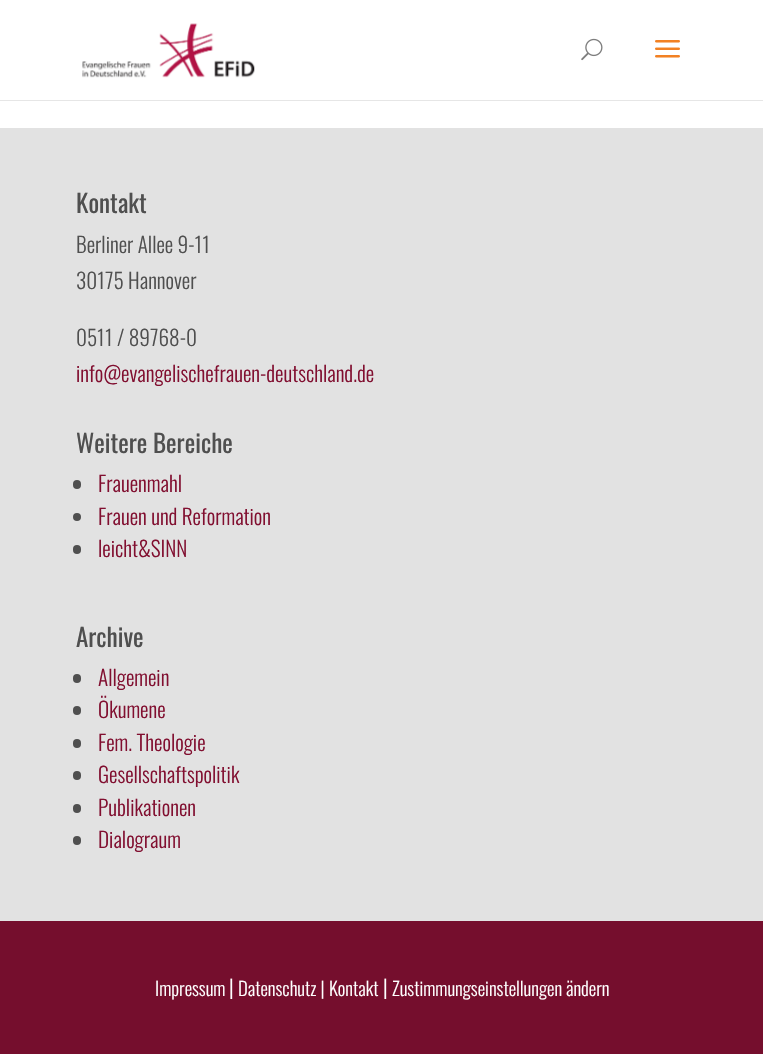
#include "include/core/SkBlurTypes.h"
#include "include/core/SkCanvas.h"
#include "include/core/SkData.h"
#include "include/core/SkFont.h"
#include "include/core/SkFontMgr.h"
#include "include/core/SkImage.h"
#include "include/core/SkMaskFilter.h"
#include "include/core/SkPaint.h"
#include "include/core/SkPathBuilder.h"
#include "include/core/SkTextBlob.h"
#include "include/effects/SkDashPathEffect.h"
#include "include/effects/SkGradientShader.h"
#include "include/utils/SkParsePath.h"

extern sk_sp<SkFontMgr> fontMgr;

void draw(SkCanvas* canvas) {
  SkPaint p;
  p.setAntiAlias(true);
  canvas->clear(SK_ColorWHITE);
  p.setColor(SkColorSetRGB(230, 230, 230));
  canvas->drawPath(SkPathBuilder().moveTo(0, 100).lineTo(0, 101).lineTo(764, 101).lineTo(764, 1).lineTo(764, 100).close().detach(), p);
  canvas->drawImageRect(SkImages::DeferredFromEncodedData(SkData::MakeFromFileName("images/1.png")), SkRect::MakeLTRB(82, 23, 255, 78), SkSamplingOptions());
  canvas->drawImageRect(SkImages::DeferredFromEncodedData(SkData::MakeFromFileName("images/2.png")), SkRect::MakeLTRB(581, 38, 603, 61), SkSamplingOptions());
  canvas->drawImageRect(SkImages::DeferredFromEncodedData(SkData::MakeFromFileName("images/3.png")), SkRect::MakeLTRB(655, 40, 680, 58), SkSamplingOptions());
  p.setColor(SkColorSetRGB(226, 226, 226));
  canvas->drawRect(SkRect::MakeLTRB(0, 128, 763, 921), p);
  p.setColor(SkColorSetRGB(79, 79, 79));
  canvas->drawRoundRect(SkRect::MakeLTRB(73, 480, 81, 489), 4, 4, p);
  canvas->drawCircle(77, 517, 4, p);
  canvas->drawRoundRect(SkRect::MakeLTRB(73, 545, 81, 554), 4, 4, p);
  canvas->drawRoundRect(SkRect::MakeLTRB(73, 674, 81, 683), 4, 4, p);
  canvas->drawRoundRect(SkRect::MakeLTRB(73, 706, 81, 715), 4, 4, p);
  canvas->drawRoundRect(SkRect::MakeLTRB(73, 739, 81, 748), 4, 4, p);
  canvas->drawRoundRect(SkRect::MakeLTRB(73, 771, 81, 780), 4, 4, p);
  canvas->drawRoundRect(SkRect::MakeLTRB(73, 804, 81, 813), 4, 4, p);
  canvas->drawRoundRect(SkRect::MakeLTRB(73, 836, 81, 845), 4, 4, p);
  p.setColor(SkColorSetRGB(117, 14, 45));
  canvas->drawRect(SkRect::MakeLTRB(0, 921, 763, 1054), p);
  SkFont font1(fontMgr->matchFamilyStyle("Oswald", SkFontStyle::Normal()), 25);
  font1.setSubpixel(true);
  p.setColor(SkColorSetRGB(79, 79, 79));
  canvas->drawString("Kontakt", 76, 213, font1, p);
  SkFont font2(fontMgr->matchFamilyStyle("Oswald", SkFontStyle(300, SkFontStyle::kNormal_Width, SkFontStyle::kUpright_Slant)), 21.25f);
  font2.setSubpixel(true);
  canvas->drawString("Berliner Allee 9-11", 76, 253, font2, p);
  canvas->drawString("30175 Hannover", 76, 289, font2, p);
  canvas->drawString("0511 / 89768-0", 76, 346, font2, p);
  p.setColor(SkColorSetRGB(129, 15, 48));
  canvas->drawString("info@evangelischefrauen-deutschland.de", 76, 382, font2, p);
  p.setColor(SkColorSetRGB(79, 79, 79));
  canvas->drawString("Weitere Bereiche", 76, 453, font1, p);
  p.setColor(SkColorSetRGB(129, 15, 48));
  canvas->drawString("Frauenmahl", 98, 492, font2, p);
  canvas->drawString("Frauen und Reformation", 98, 525, font2, p);
  canvas->drawString("leicht&SINN", 98, 557, font2, p);
  p.setColor(SkColorSetRGB(79, 79, 79));
  canvas->drawString("Archive", 76, 647, font1, p);
  p.setColor(SkColorSetRGB(129, 15, 48));
  canvas->drawString("Allgemein", 98, 686, font2, p);
  canvas->drawString("Ökumene", 98, 718, font2, p);
  canvas->drawString("Fem. Theologie", 98, 751, font2, p);
  canvas->drawString("Gesellschaftspolitik", 98, 783, font2, p);
  canvas->drawString("Publikationen", 98, 816, font2, p);
  canvas->drawString("Dialograum", 98, 848, font2, p);
  SkFont font3(fontMgr->matchFamilyStyle("Oswald", SkFontStyle(300, SkFontStyle::kNormal_Width, SkFontStyle::kUpright_Slant)), 18.75f);
  font3.setSubpixel(true);
  p.setColor(SK_ColorWHITE);
  canvas->drawString("Impressum", 155, 996, font3, p);
  canvas->drawString("|", 229, 996, font2, p);
  canvas->drawString("Datenschutz |", 238, 996, font3, p);
  canvas->drawString("Kontakt", 329, 996, font3, p);
  canvas->drawString("|", 383, 996, font2, p);
  canvas->drawString("Zustimmungseinstellungen ändern", 392, 996, font3, p);
}
